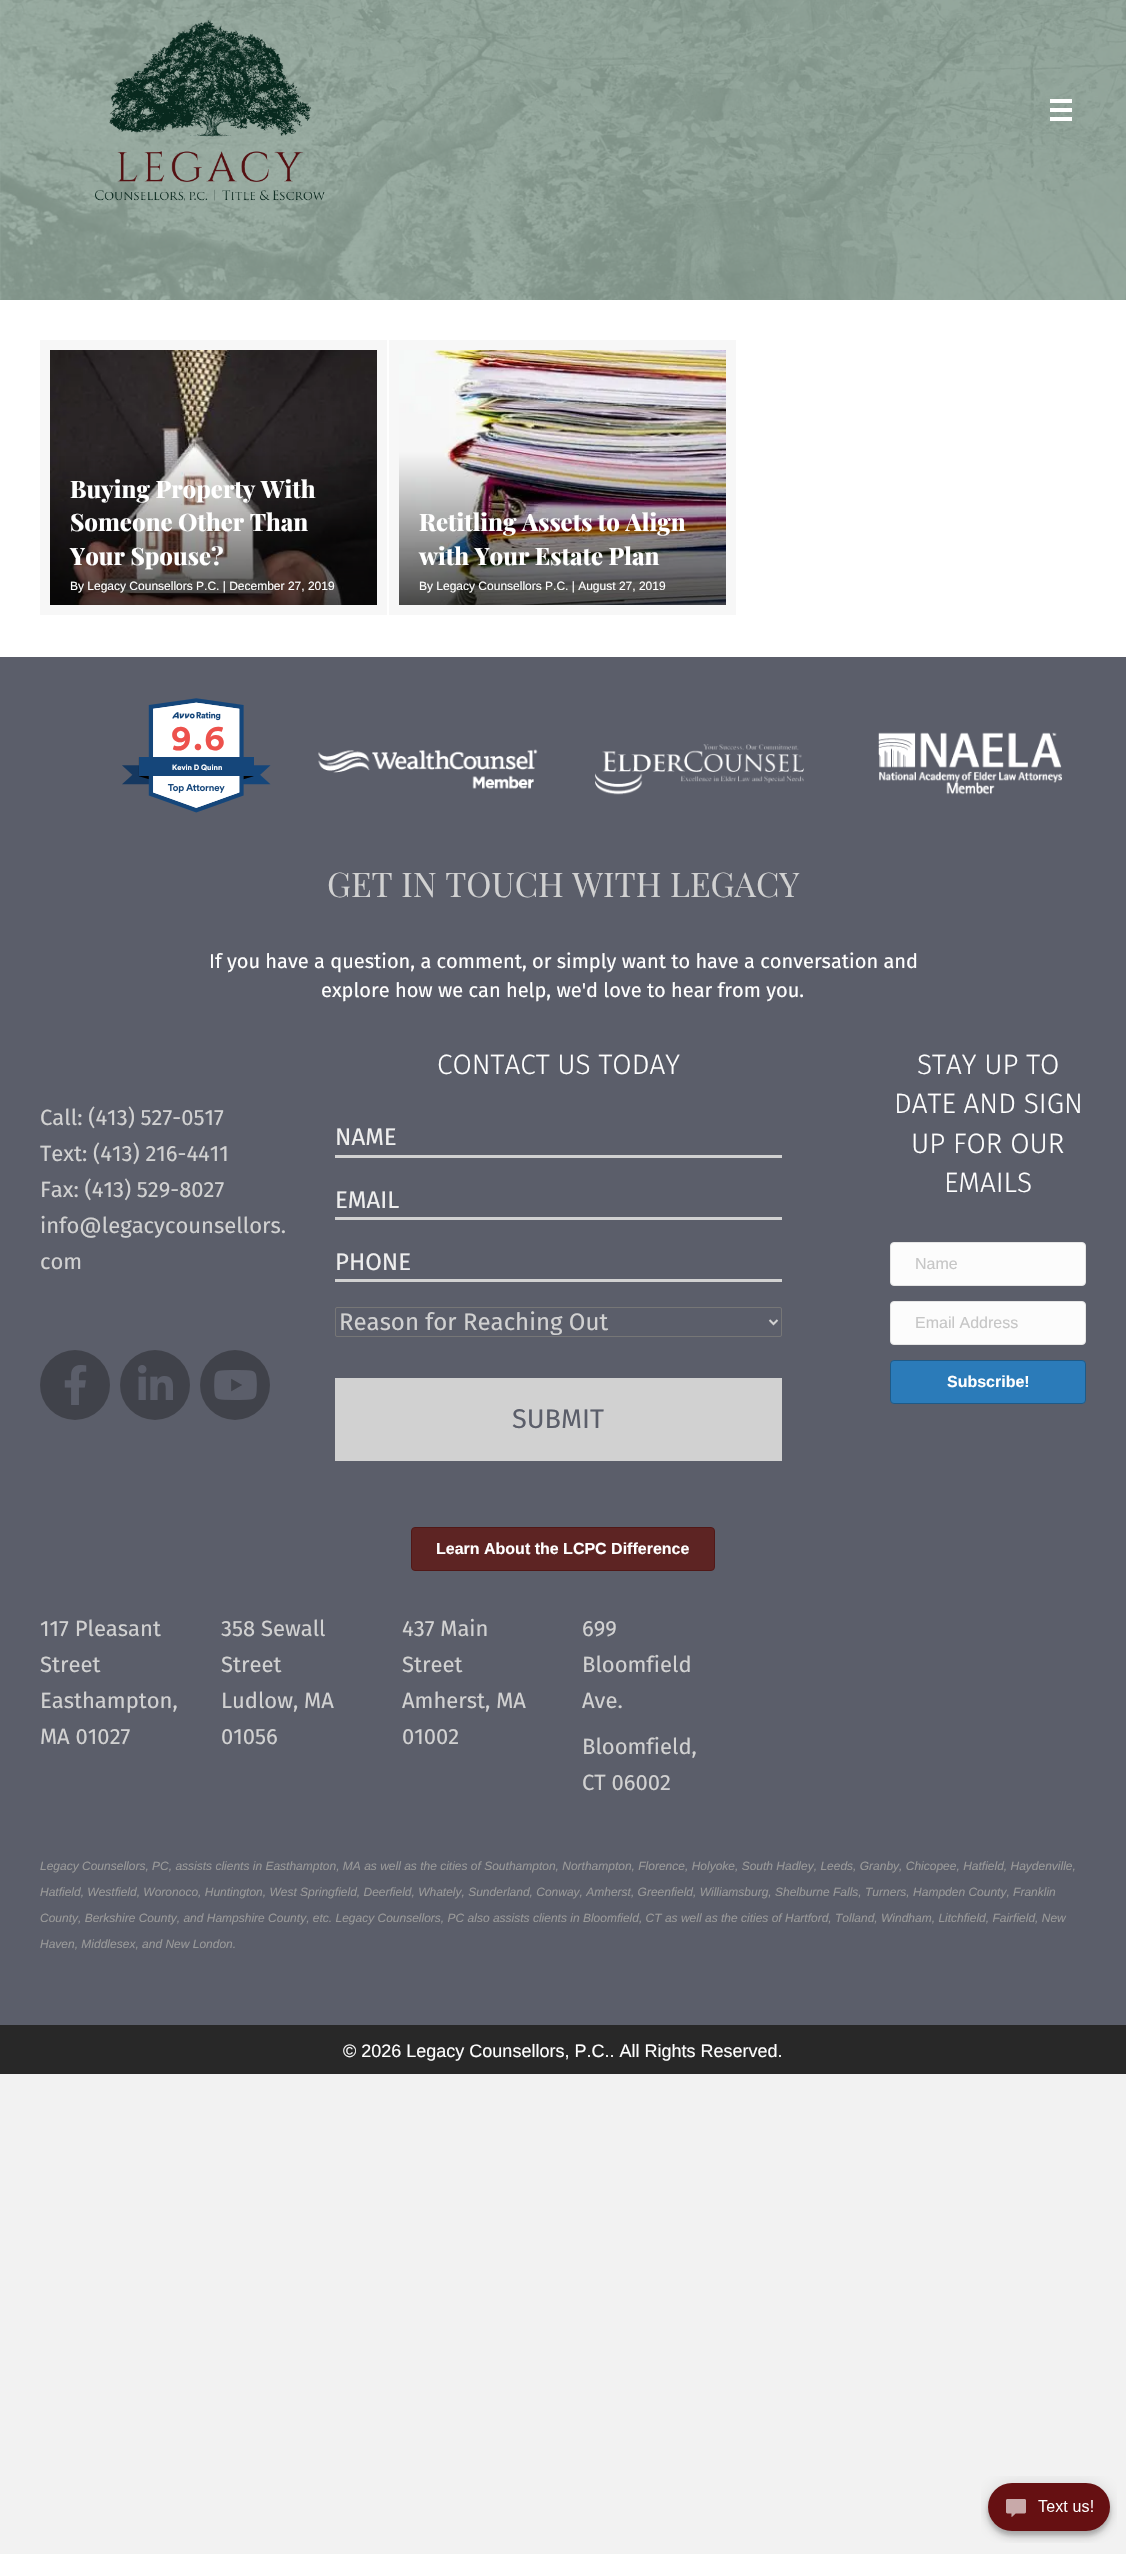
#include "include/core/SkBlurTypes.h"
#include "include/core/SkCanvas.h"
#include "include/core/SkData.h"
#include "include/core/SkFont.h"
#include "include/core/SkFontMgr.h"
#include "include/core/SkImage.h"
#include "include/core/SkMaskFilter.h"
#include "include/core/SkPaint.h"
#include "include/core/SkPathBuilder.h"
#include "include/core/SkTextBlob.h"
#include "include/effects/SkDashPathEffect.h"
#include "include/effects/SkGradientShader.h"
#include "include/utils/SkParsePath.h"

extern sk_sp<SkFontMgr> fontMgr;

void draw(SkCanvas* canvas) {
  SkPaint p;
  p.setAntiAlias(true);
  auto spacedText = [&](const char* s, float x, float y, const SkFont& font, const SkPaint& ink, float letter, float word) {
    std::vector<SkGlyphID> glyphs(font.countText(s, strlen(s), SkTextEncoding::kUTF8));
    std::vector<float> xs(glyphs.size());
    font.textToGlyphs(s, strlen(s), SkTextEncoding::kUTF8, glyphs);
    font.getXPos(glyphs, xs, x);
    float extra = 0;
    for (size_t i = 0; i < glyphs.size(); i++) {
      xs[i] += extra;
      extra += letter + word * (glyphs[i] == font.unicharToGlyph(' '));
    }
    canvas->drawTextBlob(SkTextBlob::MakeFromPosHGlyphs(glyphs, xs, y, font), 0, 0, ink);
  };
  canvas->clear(SkColorSetRGB(242, 242, 242));
  canvas->drawImageRect(SkImages::DeferredFromEncodedData(SkData::MakeFromFileName("images/1.png")), SkRect::MakeLTRB(0, 0, 1126, 300), SkSamplingOptions());
  canvas->drawImageRect(SkImages::DeferredFromEncodedData(SkData::MakeFromFileName("images/2.png")), SkRect::MakeLTRB(95, 20, 325, 201), SkSamplingOptions());
  p.setColor(SK_ColorWHITE);
  canvas->drawRect(SkRect::MakeLTRB(1050, 99, 1072, 103), p);
  canvas->drawRect(SkRect::MakeLTRB(1050, 108, 1072, 112), p);
  canvas->drawRect(SkRect::MakeLTRB(1050, 117, 1072, 121), p);
  canvas->drawRect(SkRect::MakeLTRB(0, 300, 1126, 657), p);
  p.setColor(SkColorSetRGB(247, 247, 247));
  canvas->drawRect(SkRect::MakeLTRB(40, 340, 387, 615), p);
  canvas->drawImageRect(SkImages::DeferredFromEncodedData(SkData::MakeFromFileName("images/3.png")), SkRect::MakeLTRB(50, 350, 377, 605), SkSamplingOptions());
  canvas->drawRect(SkRect::MakeLTRB(389, 340, 736, 615), p);
  canvas->drawImageRect(SkImages::DeferredFromEncodedData(SkData::MakeFromFileName("images/4.png")), SkRect::MakeLTRB(399, 350, 726, 605), SkSamplingOptions());
  p.setColor(SkColorSetRGB(91, 94, 106));
  canvas->drawRect(SkRect::MakeLTRB(0, 657, 1126, 2025), p);
  canvas->drawImageRect(SkImages::DeferredFromEncodedData(SkData::MakeFromFileName("images/5.png")), SkRect::MakeLTRB(122, 698, 271, 813), SkSamplingOptions());
  canvas->drawImageRect(SkImages::DeferredFromEncodedData(SkData::MakeFromFileName("images/6.png")), SkRect::MakeLTRB(318, 749, 538, 789), SkSamplingOptions());
  canvas->drawImageRect(SkImages::DeferredFromEncodedData(SkData::MakeFromFileName("images/7.png")), SkRect::MakeLTRB(595, 744, 804, 795), SkSamplingOptions());
  canvas->drawImageRect(SkImages::DeferredFromEncodedData(SkData::MakeFromFileName("images/8.png")), SkRect::MakeLTRB(878, 732, 1062, 795), SkSamplingOptions());
  p.setColor(SkColorSetRGB(64, 66, 74));
  canvas->drawCircle(75, 1385, 35, p);
  canvas->drawImageRect(SkImages::DeferredFromEncodedData(SkData::MakeFromFileName("images/9.png")), SkRect::MakeLTRB(64, 1365, 87, 1405), SkSamplingOptions());
  canvas->drawCircle(155, 1385, 35, p);
  canvas->drawImageRect(SkImages::DeferredFromEncodedData(SkData::MakeFromFileName("images/10.png")), SkRect::MakeLTRB(138, 1365, 173, 1400), SkSamplingOptions());
  canvas->drawCircle(235, 1385, 35, p);
  canvas->drawImageRect(SkImages::DeferredFromEncodedData(SkData::MakeFromFileName("images/11.png")), SkRect::MakeLTRB(214, 1370, 257, 1400), SkSamplingOptions());
  p.setColor(SkColorSetRGB(209, 209, 209));
  canvas->drawRect(SkRect::MakeLTRB(335, 1155, 782, 1158), p);
  canvas->drawRect(SkRect::MakeLTRB(335, 1217, 782, 1220), p);
  canvas->drawRect(SkRect::MakeLTRB(335, 1279, 782, 1282), p);
  p.setStyle(SkPaint::kStroke_Style);
  p.setStrokeWidth(1);
  p.setColor(SkColorSetRGB(118, 118, 118));
  canvas->drawRoundRect(SkRect::MakeLTRB(335.5f, 1307.5f, 781.5f, 1336.5f), 1.5f, 1.5f, p);
  p.setStrokeWidth(2);
  p.setColor(SkColorSetRGB(209, 209, 209));
  canvas->drawPath(SkPathBuilder().moveTo(769.5f, 1320).lineTo(773.5f, 1324).lineTo(777.5f, 1320).detach(), p);
  p.setStyle(SkPaint::kFill_Style);
  canvas->drawRect(SkRect::MakeLTRB(335, 1378, 782, 1461), p);
  p.setColor(SkColorSetRGB(252, 252, 252));
  canvas->drawRoundRect(SkRect::MakeLTRB(890.5f, 1242.5f, 1085.5f, 1285.5f), 3.5f, 3.5f, p);
  p.setStyle(SkPaint::kStroke_Style);
  p.setStrokeWidth(1);
  p.setColor(SkColorSetRGB(230, 230, 230));
  canvas->drawRoundRect(SkRect::MakeLTRB(890.5f, 1242.5f, 1085.5f, 1285.5f), 3.5f, 3.5f, p);
  p.setStyle(SkPaint::kFill_Style);
  p.setColor(SkColorSetRGB(252, 252, 252));
  canvas->drawRoundRect(SkRect::MakeLTRB(890.5f, 1301.5f, 1085.5f, 1344.5f), 3.5f, 3.5f, p);
  p.setStyle(SkPaint::kStroke_Style);
  p.setColor(SkColorSetRGB(230, 230, 230));
  canvas->drawRoundRect(SkRect::MakeLTRB(890.5f, 1301.5f, 1085.5f, 1344.5f), 3.5f, 3.5f, p);
  p.setStyle(SkPaint::kFill_Style);
  p.setColor(SkColorSetRGB(43, 123, 185));
  canvas->drawRoundRect(SkRect::MakeLTRB(890.5f, 1360.5f, 1085.5f, 1403.5f), 3.5f, 3.5f, p);
  p.setStyle(SkPaint::kStroke_Style);
  p.setColor(SkColorSetRGB(31, 90, 135));
  canvas->drawRoundRect(SkRect::MakeLTRB(890.5f, 1360.5f, 1085.5f, 1403.5f), 3.5f, 3.5f, p);
  p.setStyle(SkPaint::kFill_Style);
  p.setColor(SkColorSetRGB(93, 36, 35));
  canvas->drawRoundRect(SkRect::MakeLTRB(411.5f, 1527.5f, 714.5f, 1570.5f), 3.5f, 3.5f, p);
  p.setStyle(SkPaint::kStroke_Style);
  p.setColor(SkColorSetRGB(81, 24, 23));
  canvas->drawRoundRect(SkRect::MakeLTRB(411.5f, 1527.5f, 714.5f, 1570.5f), 3.5f, 3.5f, p);
  p.setStyle(SkPaint::kFill_Style);
  p.setColor(SkColorSetRGB(40, 40, 40));
  canvas->drawRect(SkRect::MakeLTRB(0, 2025, 1126, 2074), p);
  canvas->drawImageRect(SkImages::DeferredFromEncodedData(SkData::MakeFromFileName("images/12.png")), SkRect::MakeLTRB(981, 2476, 1117, 2543), SkSamplingOptions());
  SkFont font1(fontMgr->matchFamilyStyle("Playfair Display", SkFontStyle(800, SkFontStyle::kNormal_Width, SkFontStyle::kUpright_Slant)), 24);
  font1.setSubpixel(true);
  p.setColor(SK_ColorWHITE);
  canvas->drawString("Buying Property With", 70, 498, font1, p);
  canvas->drawString("Someone Other Than", 70, 531, font1, p);
  canvas->drawString("Your Spouse?", 70, 565, font1, p);
  SkFont font2(fontMgr->matchFamilyStyle("Liberation Sans", SkFontStyle::Normal()), 12);
  font2.setSubpixel(true);
  canvas->drawString("By Legacy Counsellors P.C. | December 27, 2019", 70, 590, font2, p);
  canvas->drawString("Retitling Assets to Align", 419, 531, font1, p);
  canvas->drawString("with Your Estate Plan", 419, 565, font1, p);
  canvas->drawString("By Legacy Counsellors P.C. | August 27, 2019", 419, 590, font2, p);
  SkFont font3(fontMgr->matchFamilyStyle("Circular", SkFontStyle::Bold()), 35);
  font3.setSubpixel(true);
  p.setColor(SkColorSetRGB(237, 81, 76));
  spacedText("9.6", 171, 750, font3, p, 1, 0);
  SkFont font4(fontMgr->matchFamilyStyle("Circular", SkFontStyle::Bold()), 7.5f);
  font4.setSubpixel(true);
  p.setColor(SK_ColorWHITE);
  canvas->drawString("Kevin D Quinn", 172, 770, font4, p);
  SkFont font5(fontMgr->matchFamilyStyle("Playfair Display", SkFontStyle::Normal()), 34);
  font5.setSubpixel(true);
  p.setColor(SkColorSetRGB(209, 209, 209));
  canvas->drawString("GET IN TOUCH WITH LEGACY", 327, 897, font5, p);
  SkFont font6(fontMgr->matchFamilyStyle("Fira Sans", SkFontStyle::Normal()), 20);
  font6.setSubpixel(true);
  p.setColor(SK_ColorWHITE);
  canvas->drawString("If you have a question, a comment, or simply want to have a conversation and", 209, 968, font6, p);
  canvas->drawString("explore how we can help, we'd love to hear from you.", 321, 997, font6, p);
  SkFont font7(fontMgr->matchFamilyStyle("Fira Sans", SkFontStyle::Normal()), 22);
  font7.setSubpixel(true);
  p.setColor(SkColorSetRGB(209, 209, 209));
  canvas->drawString("Call: (413) 527-0517", 40, 1125, font7, p);
  canvas->drawString("Text: (413) 216-4411", 40, 1161, font7, p);
  canvas->drawString("Fax: (413) 529-8027", 40, 1197, font7, p);
  canvas->drawString("info@legacycounsellors.", 40, 1233, font7, p);
  canvas->drawString("com", 40, 1269, font7, p);
  SkFont font8(fontMgr->matchFamilyStyle("Fira Sans", SkFontStyle(300, SkFontStyle::kNormal_Width, SkFontStyle::kUpright_Slant)), 28);
  font8.setSubpixel(true);
  p.setColor(SK_ColorWHITE);
  canvas->drawString("CONTACT US TODAY", 437, 1074, font8, p);
  SkFont font9(fontMgr->matchFamilyStyle("Fira Sans", SkFontStyle::Normal()), 24);
  font9.setSubpixel(true);
  p.setColor(SkColorSetRGB(238, 238, 238));
  canvas->drawString("NAME", 335, 1145, font9, p);
  canvas->drawString("EMAIL", 335, 1208, font9, p);
  canvas->drawString("PHONE", 335, 1270, font9, p);
  p.setColor(SkColorSetRGB(209, 209, 209));
  canvas->drawString("Reason for Reaching Out", 339, 1330, font9, p);
  SkFont font10(fontMgr->matchFamilyStyle("Fira Sans", SkFontStyle::Normal()), 27);
  font10.setSubpixel(true);
  p.setColor(SkColorSetRGB(91, 94, 106));
  canvas->drawString("SUBMIT", 512, 1428, font10, p);
  p.setColor(SK_ColorWHITE);
  canvas->drawString("STAY UP TO", 917, 1074, font8, p);
  canvas->drawString("DATE AND SIGN", 894, 1113, font8, p);
  canvas->drawString("UP FOR OUR", 911, 1153, font8, p);
  canvas->drawString("EMAILS", 944, 1192, font8, p);
  SkFont font11(fontMgr->matchFamilyStyle("Liberation Sans", SkFontStyle::Normal()), 16);
  font11.setSubpixel(true);
  p.setColor(SkColorSetRGB(198, 198, 198));
  canvas->drawString("Name", 915, 1269, font11, p);
  canvas->drawString("Email Address", 915, 1328, font11, p);
  SkFont font12(fontMgr->matchFamilyStyle("Liberation Sans", SkFontStyle::Bold()), 16);
  font12.setSubpixel(true);
  p.setColor(SK_ColorWHITE);
  canvas->drawString("Subscribe!", 947, 1387, font12, p);
  canvas->drawString("Learn About the LCPC Difference", 436, 1554, font12, p);
  p.setColor(SkColorSetRGB(209, 209, 209));
  canvas->drawString("117 Pleasant", 40, 1636, font7, p);
  canvas->drawString("Street", 40, 1672, font7, p);
  canvas->drawString("Easthampton,", 40, 1708, font7, p);
  canvas->drawString("MA 01027", 40, 1744, font7, p);
  canvas->drawString("358 Sewall", 221, 1636, font7, p);
  canvas->drawString("Street", 221, 1672, font7, p);
  canvas->drawString("Ludlow, MA", 221, 1708, font7, p);
  canvas->drawString("01056", 221, 1744, font7, p);
  canvas->drawString("437 Main", 402, 1636, font7, p);
  canvas->drawString("Street", 402, 1672, font7, p);
  canvas->drawString("Amherst, MA", 402, 1708, font7, p);
  canvas->drawString("01002", 402, 1744, font7, p);
  canvas->drawString("699", 582, 1636, font7, p);
  canvas->drawString("Bloomfield", 582, 1672, font7, p);
  canvas->drawString("Ave.", 582, 1708, font7, p);
  canvas->drawString("Bloomfield,", 582, 1754, font7, p);
  canvas->drawString("CT 06002", 582, 1790, font7, p);
  SkFont font13(fontMgr->matchFamilyStyle("Liberation Sans", SkFontStyle::Italic()), 12);
  font13.setSubpixel(true);
  p.setColor(SkColorSetRGB(153, 153, 153));
  canvas->drawString("Legacy Counsellors, PC, assists clients in Easthampton, MA as well as the cities of Southampton, Northampton, Florence, Holyoke, South Hadley, Leeds, Granby, Chicopee, Hatfield, Haydenville,", 40, 1870, font13, p);
  canvas->drawString("Hatfield, Westfield, Woronoco, Huntington, West Springfield, Deerfield, Whately, Sunderland, Conway, Amherst, Greenfield, Williamsburg, Shelburne Falls, Turners, Hampden County, Franklin", 40, 1896, font13, p);
  canvas->drawString("County, Berkshire County, and Hampshire County, etc. Legacy Counsellors, PC also assists clients in Bloomfield, CT as well as the cities of Hartford, Tolland, Windham, Litchfield, Fairfield, New", 40, 1922, font13, p);
  canvas->drawString("Haven, Middlesex, and New London.", 40, 1948, font13, p);
  SkFont font14(fontMgr->matchFamilyStyle("Liberation Sans", SkFontStyle::Normal()), 18);
  font14.setSubpixel(true);
  p.setColor(SK_ColorWHITE);
  canvas->drawString("© 2026 Legacy Counsellors, P.C.. All Rights Reserved.", 343, 2057, font14, p);
}
